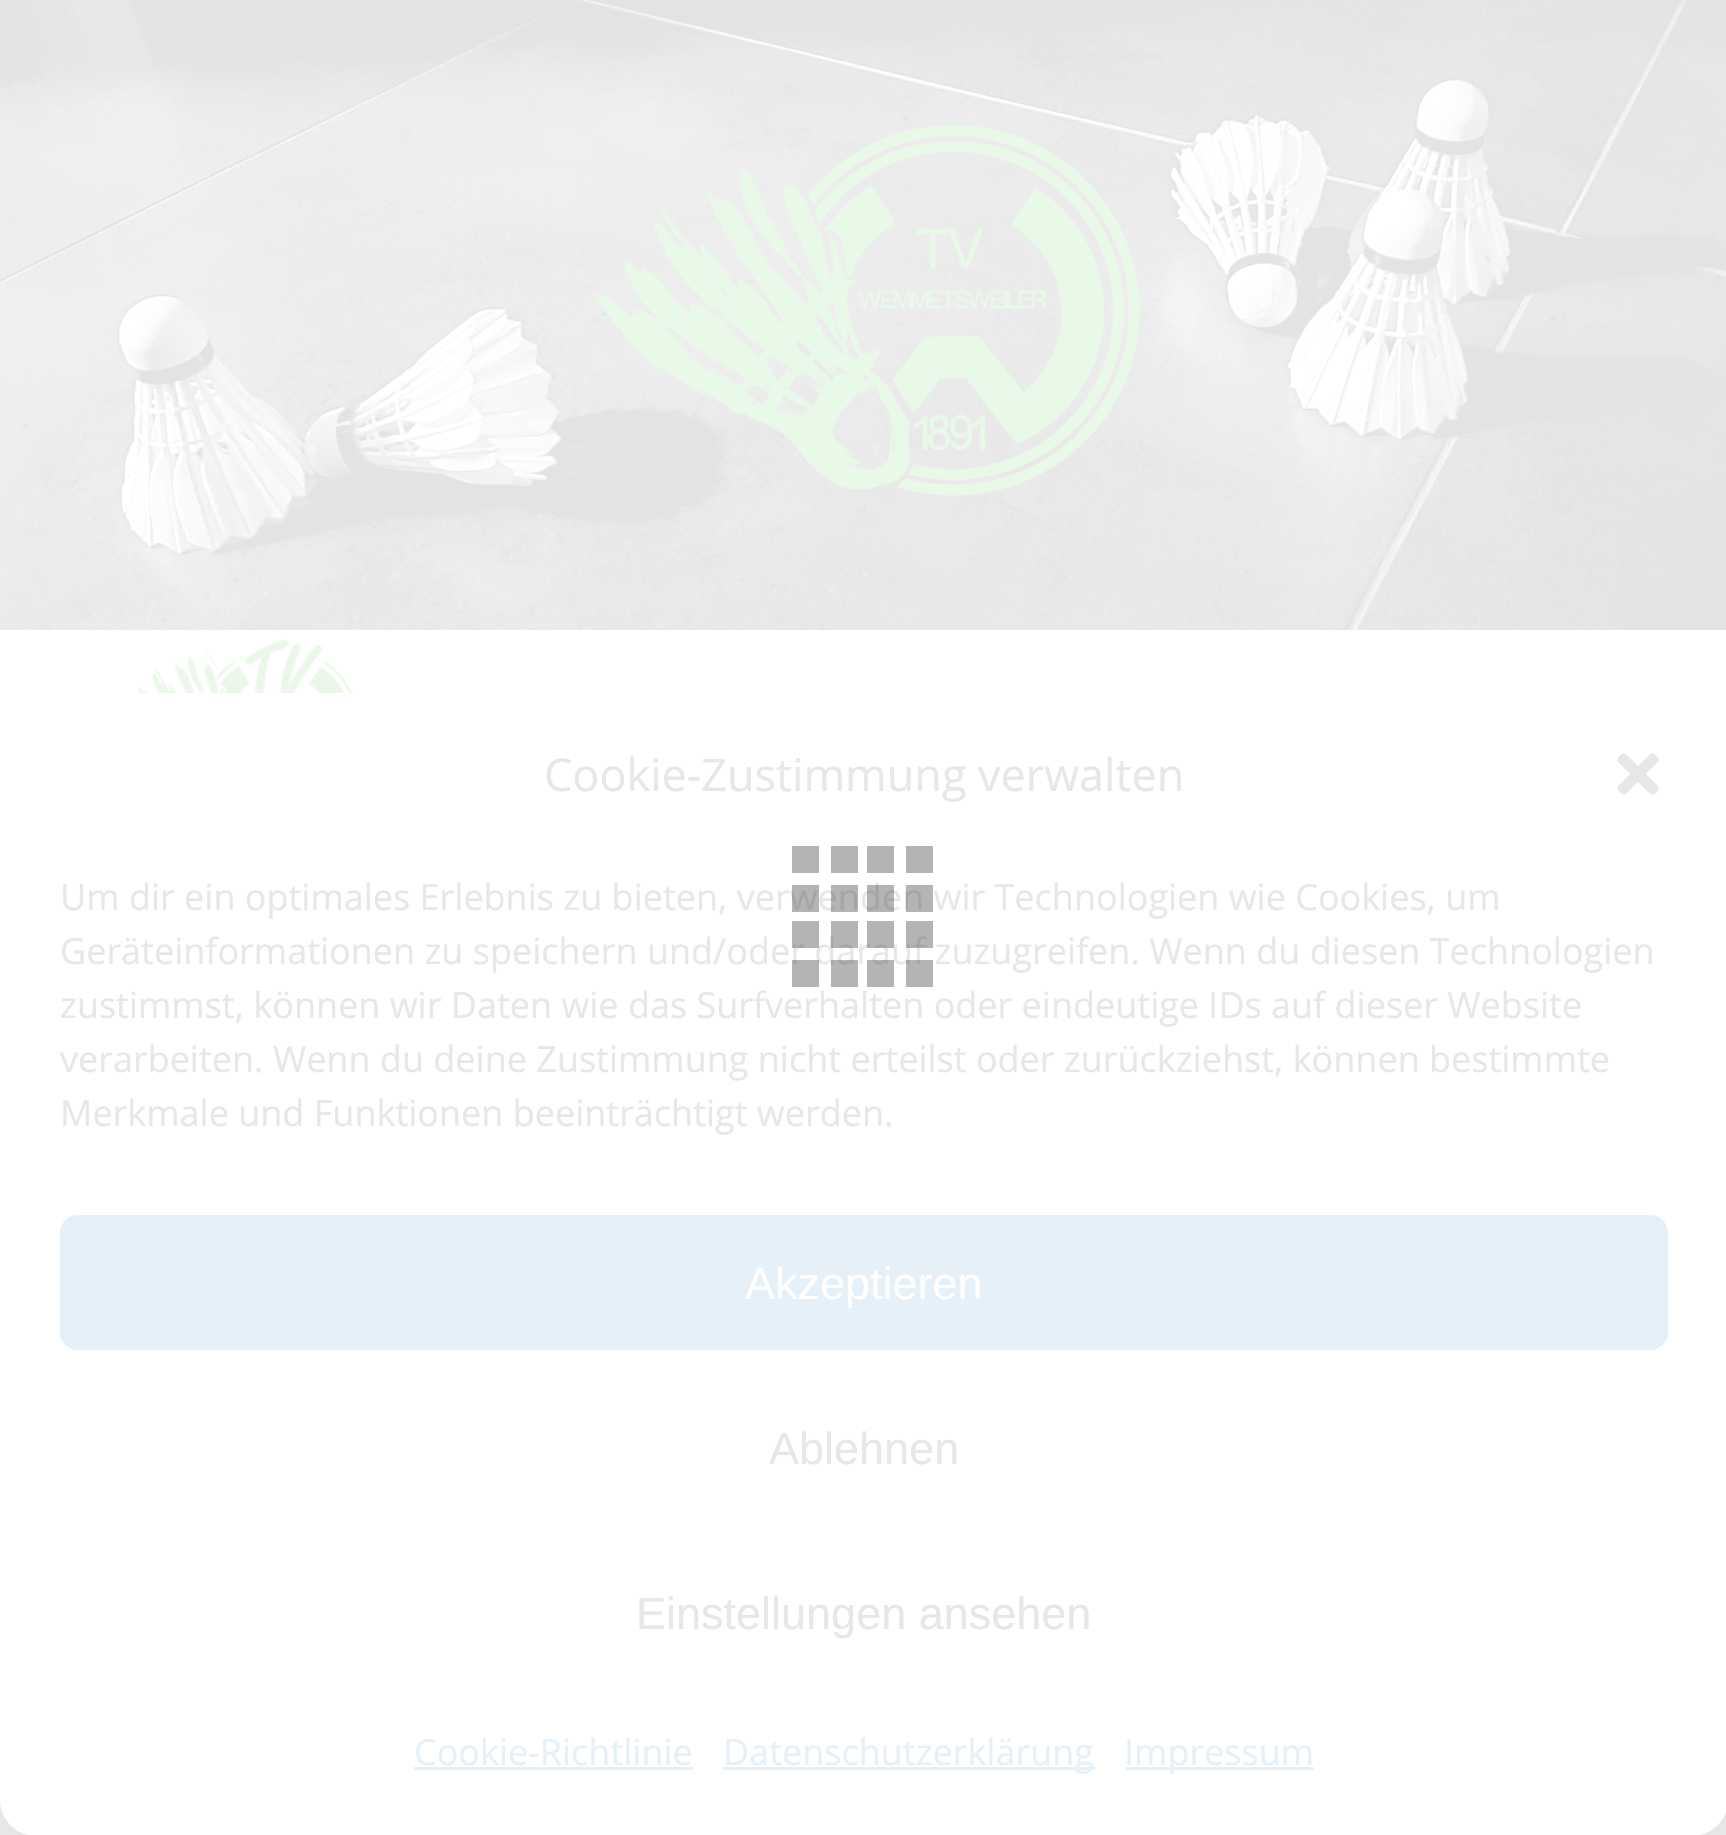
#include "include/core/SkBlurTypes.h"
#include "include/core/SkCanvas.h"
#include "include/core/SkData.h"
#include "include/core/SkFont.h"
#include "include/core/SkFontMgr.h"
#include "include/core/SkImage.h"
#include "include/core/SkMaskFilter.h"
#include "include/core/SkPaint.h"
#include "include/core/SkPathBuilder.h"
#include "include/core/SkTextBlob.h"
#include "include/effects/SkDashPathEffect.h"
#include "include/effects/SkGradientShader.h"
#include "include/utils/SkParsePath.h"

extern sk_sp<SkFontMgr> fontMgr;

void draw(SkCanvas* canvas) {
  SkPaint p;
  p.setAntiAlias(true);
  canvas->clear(SkColorSetRGB(231, 231, 231));
  canvas->drawImageRect(SkImages::DeferredFromEncodedData(SkData::MakeFromFileName("images/1.png")), SkRect::MakeLTRB(0, 0, 1726, 630), SkSamplingOptions());
  p.setColor(SK_ColorWHITE);
  canvas->drawRect(SkRect::MakeLTRB(0, 630, 1726, 729), p);
  canvas->drawImageRect(SkImages::DeferredFromEncodedData(SkData::MakeFromFileName("images/2.png")), SkRect::MakeLTRB(138, 639, 353, 693), SkSamplingOptions());
  canvas->drawRoundRect(SkRect::MakeLTRB(0, 693, 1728, 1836), 36, 36, p);
  canvas->drawImageRect(SkImages::DeferredFromEncodedData(SkData::MakeFromFileName("images/3.png")), SkRect::MakeLTRB(1617, 753, 1659, 795), SkSamplingOptions());
  p.setColor(SkColorSetRGB(230, 240, 248));
  canvas->drawRoundRect(SkRect::MakeLTRB(61.5f, 1216.5f, 1666.5f, 1348.5f), 16.5f, 16.5f, p);
  p.setStyle(SkPaint::kStroke_Style);
  p.setStrokeWidth(3);
  canvas->drawRoundRect(SkRect::MakeLTRB(61.5f, 1216.5f, 1666.5f, 1348.5f), 16.5f, 16.5f, p);
  p.setStyle(SkPaint::kFill_Style);
  canvas->drawRect(SkRect::MakeLTRB(414, 1767, 693, 1770), p);
  canvas->drawRect(SkRect::MakeLTRB(723, 1767, 1095, 1770), p);
  canvas->drawRect(SkRect::MakeLTRB(1125, 1767, 1314, 1770), p);
  p.setColor(SkColorSetRGB(179, 179, 179));
  canvas->drawRect(SkRect::MakeLTRB(792, 846, 819, 873), p);
  canvas->drawRect(SkRect::MakeLTRB(831, 846, 858, 873), p);
  canvas->drawRect(SkRect::MakeLTRB(867, 846, 894, 873), p);
  canvas->drawRect(SkRect::MakeLTRB(906, 846, 933, 873), p);
  SkFont font1(fontMgr->matchFamilyStyle("Open Sans", SkFontStyle::Normal()), 45);
  font1.setSubpixel(true);
  p.setColor(SkColorSetRGB(231, 231, 231));
  canvas->drawString("Cookie-Zustimmung verwalten", 544, 791, font1, p);
  SkFont font2(fontMgr->matchFamilyStyle("Open Sans", SkFontStyle::Normal()), 36);
  font2.setSubpixel(true);
  canvas->drawString("Um dir ein optimales Erlebnis zu bieten, verwenden wir Technologien wie Cookies, um", 60, 910, font2, p);
  canvas->drawString("Geräteinformationen zu speichern und/oder darauf zuzugreifen. Wenn du diesen Technologien", 60, 964, font2, p);
  canvas->drawString("zustimmst, können wir Daten wie das Surfverhalten oder eindeutige IDs auf dieser Website", 60, 1018, font2, p);
  canvas->drawString("verarbeiten. Wenn du deine Zustimmung nicht erteilst oder zurückziehst, können bestimmte", 60, 1072, font2, p);
  canvas->drawString("Merkmale und Funktionen beeinträchtigt werden.", 60, 1126, font2, p);
  SkFont font3(fontMgr->matchFamilyStyle("Liberation Sans", SkFontStyle::Normal()), 45);
  font3.setSubpixel(true);
  p.setColor(SK_ColorWHITE);
  canvas->drawString("Akzeptieren", 745, 1299, font3, p);
  p.setColor(SkColorSetRGB(231, 231, 231));
  canvas->drawString("Ablehnen", 769, 1464, font3, p);
  canvas->drawString("Einstellungen ansehen", 636, 1629, font3, p);
  p.setColor(SkColorSetRGB(230, 240, 248));
  canvas->drawString("Cookie-Richtlinie", 414, 1765, font2, p);
  canvas->drawString("Datenschutzerklärung", 723, 1765, font2, p);
  canvas->drawString("Impressum", 1124, 1765, font2, p);
  p.setColor(SkColorSetARGB(94, 51, 51, 51));
  canvas->drawRect(SkRect::MakeLTRB(792, 885, 819, 912), p);
  canvas->drawRect(SkRect::MakeLTRB(831, 885, 858, 912), p);
  canvas->drawRect(SkRect::MakeLTRB(867, 885, 894, 912), p);
  canvas->drawRect(SkRect::MakeLTRB(906, 885, 933, 912), p);
  canvas->drawRect(SkRect::MakeLTRB(792, 921, 819, 948), p);
  canvas->drawRect(SkRect::MakeLTRB(831, 921, 858, 948), p);
  canvas->drawRect(SkRect::MakeLTRB(867, 921, 894, 948), p);
  canvas->drawRect(SkRect::MakeLTRB(906, 921, 933, 948), p);
  canvas->drawRect(SkRect::MakeLTRB(792, 960, 819, 987), p);
  canvas->drawRect(SkRect::MakeLTRB(831, 960, 858, 987), p);
  canvas->drawRect(SkRect::MakeLTRB(867, 960, 894, 987), p);
  canvas->drawRect(SkRect::MakeLTRB(906, 960, 933, 987), p);
}
